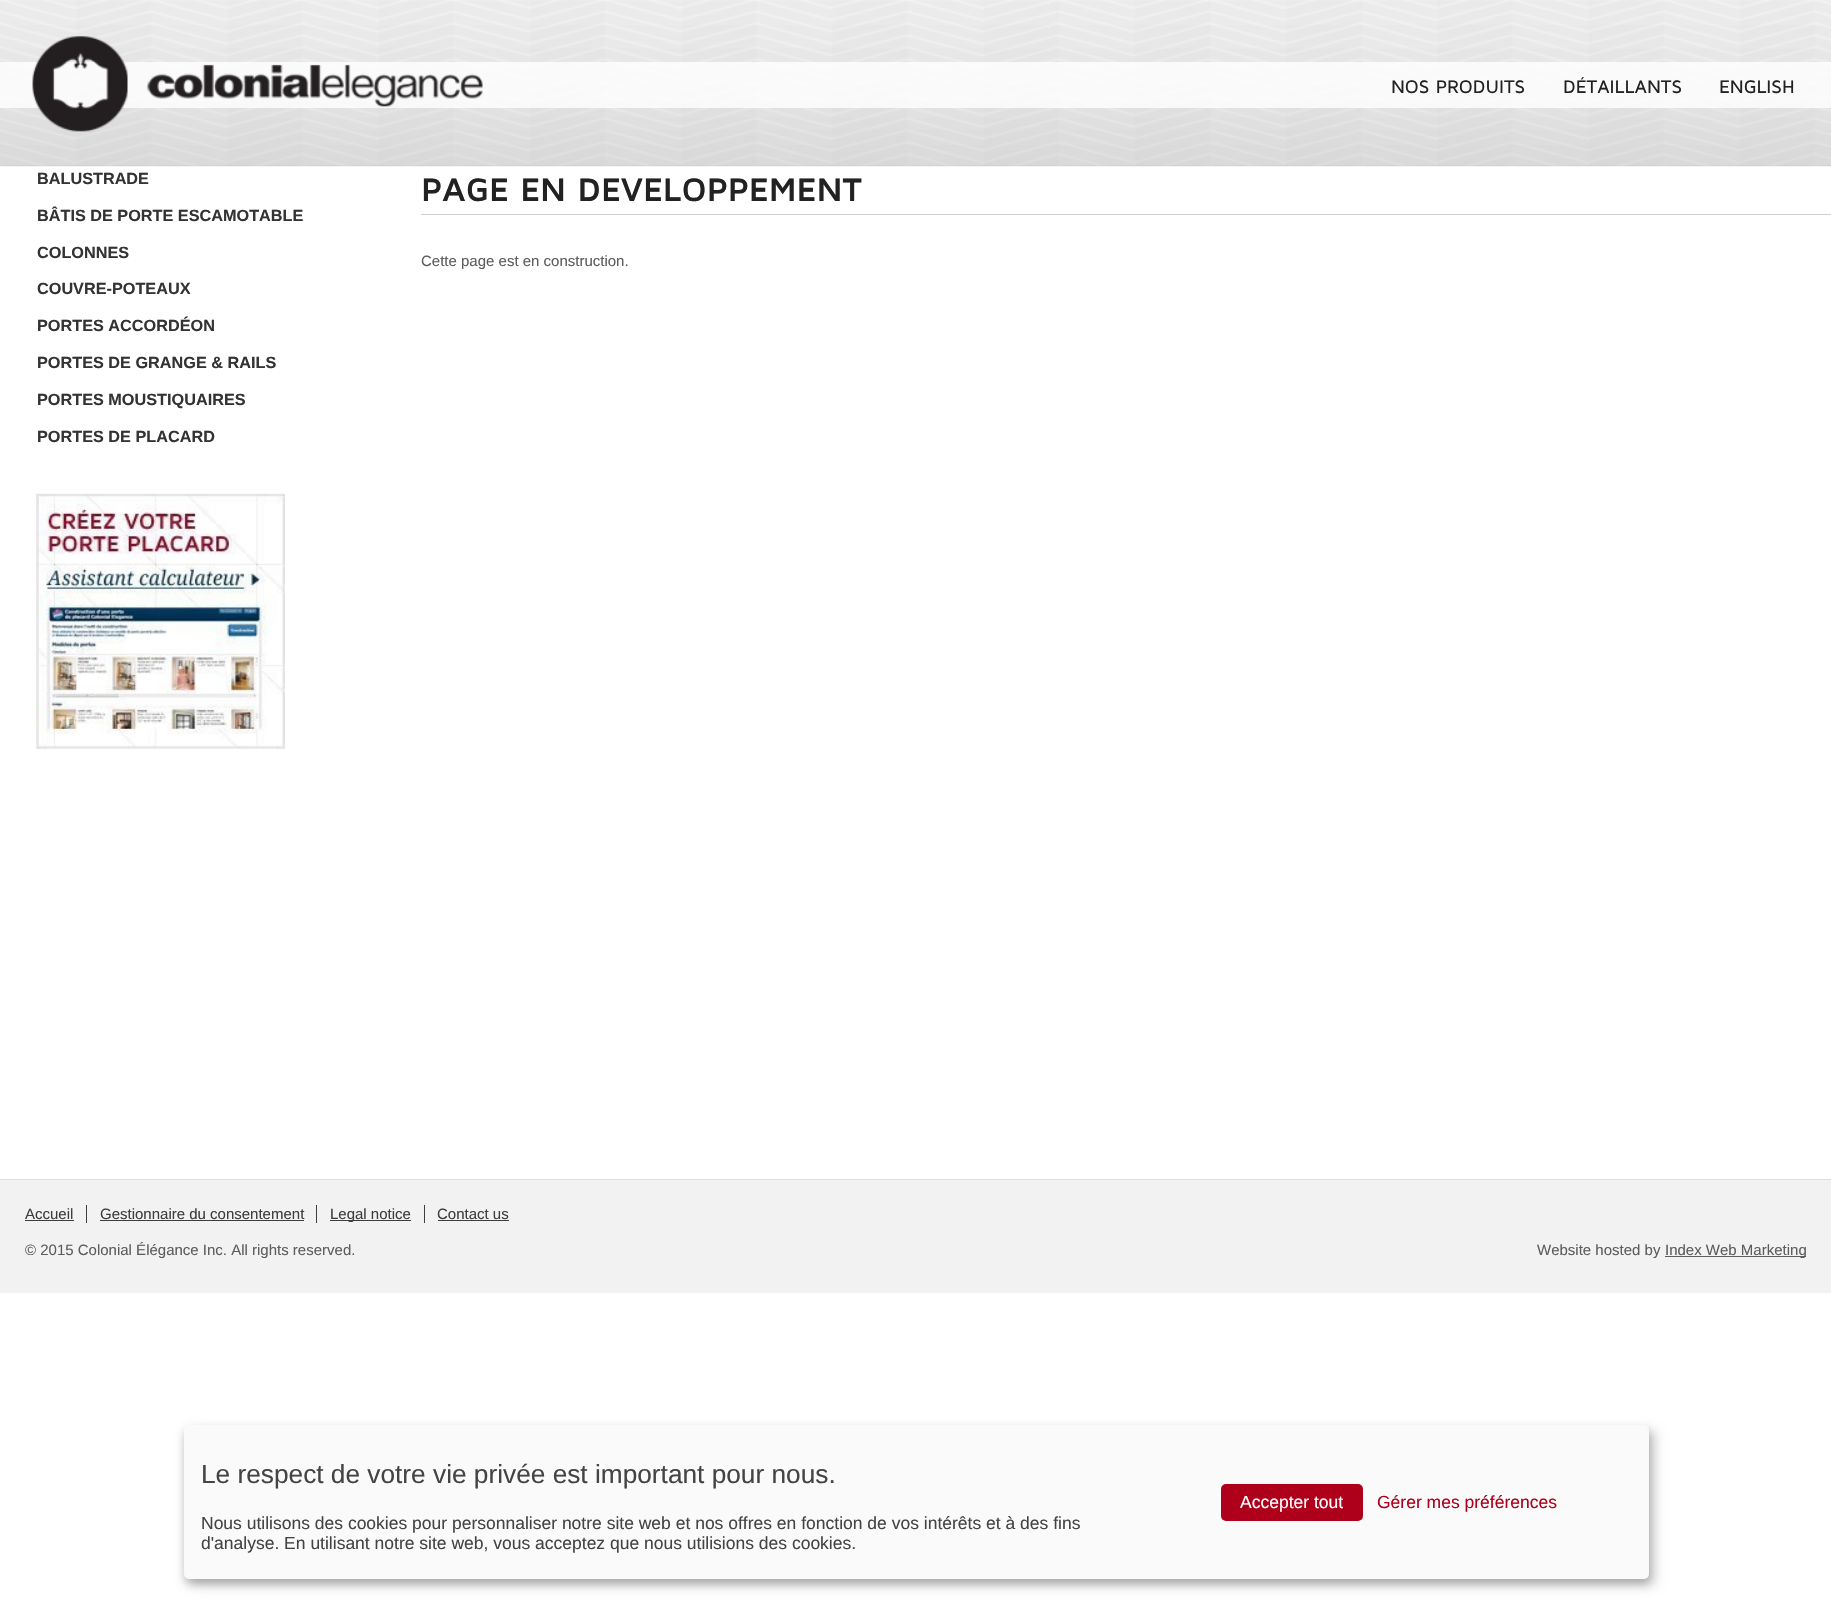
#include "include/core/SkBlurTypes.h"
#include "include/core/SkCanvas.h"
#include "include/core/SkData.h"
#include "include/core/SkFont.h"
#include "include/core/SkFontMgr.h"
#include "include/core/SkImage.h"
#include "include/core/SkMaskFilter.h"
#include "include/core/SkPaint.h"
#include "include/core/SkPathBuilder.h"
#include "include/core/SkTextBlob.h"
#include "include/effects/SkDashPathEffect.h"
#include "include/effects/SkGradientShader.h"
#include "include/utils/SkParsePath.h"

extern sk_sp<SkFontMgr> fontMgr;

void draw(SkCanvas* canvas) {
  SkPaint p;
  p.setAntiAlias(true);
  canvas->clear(SK_ColorWHITE);
  canvas->drawImageRect(SkImages::DeferredFromEncodedData(SkData::MakeFromFileName("images/1.png")), SkRect::MakeLTRB(0, 0, 1831, 167), SkSamplingOptions());
  p.setColor(SkColorSetARGB(204, 255, 255, 255));
  canvas->drawRect(SkRect::MakeLTRB(0, 62, 1831, 108), p);
  canvas->drawImageRect(SkImages::DeferredFromEncodedData(SkData::MakeFromFileName("images/2.png")), SkRect::MakeLTRB(32, 36, 483, 132), SkSamplingOptions());
  canvas->drawImageRect(SkImages::DeferredFromEncodedData(SkData::MakeFromFileName("images/3.png")), SkRect::MakeLTRB(36, 493, 285, 749), SkSamplingOptions());
  p.setColor(SkColorSetRGB(207, 207, 207));
  canvas->drawRect(SkRect::MakeLTRB(421, 214, 1831, 215), p);
  p.setColor(SkColorSetRGB(242, 242, 243));
  canvas->drawRect(SkRect::MakeLTRB(0, 1180, 1831, 1293), p);
  p.setColor(SkColorSetRGB(221, 221, 221));
  canvas->drawRect(SkRect::MakeLTRB(0, 1179, 1831, 1180), p);
  p.setColor(SkColorSetRGB(62, 62, 62));
  canvas->drawRect(SkRect::MakeLTRB(86, 1205, 87, 1223), p);
  canvas->drawRect(SkRect::MakeLTRB(25, 1220, 74, 1221), p);
  canvas->drawRect(SkRect::MakeLTRB(316, 1205, 317, 1223), p);
  canvas->drawRect(SkRect::MakeLTRB(100, 1220, 304, 1221), p);
  canvas->drawRect(SkRect::MakeLTRB(424, 1205, 425, 1223), p);
  canvas->drawRect(SkRect::MakeLTRB(330, 1220, 411, 1221), p);
  canvas->drawRect(SkRect::MakeLTRB(438, 1220, 509, 1221), p);
  p.setColor(SkColorSetRGB(93, 93, 93));
  canvas->drawRect(SkRect::MakeLTRB(1665, 1256, 1806, 1257), p);
  p.setColor(SkColorSetARGB(48, 0, 0, 0));
  p.setMaskFilter(SkMaskFilter::MakeBlur(kNormal_SkBlurStyle, 6));
  canvas->drawRoundRect(SkRect::MakeLTRB(190, 1431, 1655, 1585), 5, 5, p);
  p.setMaskFilter(nullptr);
  p.setColor(SkColorSetARGB(51, 0, 0, 0));
  p.setMaskFilter(SkMaskFilter::MakeBlur(kNormal_SkBlurStyle, 4));
  canvas->drawRoundRect(SkRect::MakeLTRB(184, 1430, 1649, 1584), 5, 5, p);
  p.setMaskFilter(nullptr);
  p.setColor(SkColorSetRGB(250, 250, 250));
  canvas->drawRoundRect(SkRect::MakeLTRB(184, 1425, 1649, 1579), 5, 5, p);
  p.setColor(SkColorSetRGB(175, 0, 27));
  canvas->drawRoundRect(SkRect::MakeLTRB(1221, 1484, 1363, 1521), 5, 5, p);
  SkFont font1(fontMgr->matchFamilyStyle("Maven Pro", SkFontStyle(500, SkFontStyle::kNormal_Width, SkFontStyle::kUpright_Slant)), 18.75f);
  font1.setSubpixel(true);
  p.setColor(SkColorSetRGB(34, 34, 34));
  canvas->drawString("NOS PRODUITS", 1391, 93, font1, p);
  canvas->drawString("DÉTAILLANTS", 1563, 93, font1, p);
  canvas->drawString("ENGLISH", 1719, 93, font1, p);
  SkFont font2(fontMgr->matchFamilyStyle("Liberation Sans", SkFontStyle::Bold()), 16.25f);
  font2.setSubpixel(true);
  p.setColor(SkColorSetRGB(51, 51, 51));
  canvas->drawString("BALUSTRADE", 37, 184, font2, p);
  canvas->drawString("BÂTIS DE PORTE ESCAMOTABLE", 37, 221, font2, p);
  canvas->drawString("COLONNES", 37, 258, font2, p);
  canvas->drawString("COUVRE-POTEAUX", 37, 294, font2, p);
  canvas->drawString("PORTES ACCORDÉON", 37, 331, font2, p);
  canvas->drawString("PORTES DE GRANGE & RAILS", 37, 368, font2, p);
  canvas->drawString("PORTES MOUSTIQUAIRES", 37, 405, font2, p);
  canvas->drawString("PORTES DE PLACARD", 37, 442, font2, p);
  SkFont font3(fontMgr->matchFamilyStyle("Maven Pro", SkFontStyle::Bold()), 33.75f);
  font3.setSubpixel(true);
  p.setColor(SkColorSetRGB(34, 34, 34));
  canvas->drawString("PAGE EN DEVELOPPEMENT", 421, 201, font3, p);
  SkFont font4(fontMgr->matchFamilyStyle("Liberation Sans", SkFontStyle::Normal()), 15);
  font4.setSubpixel(true);
  p.setColor(SkColorSetRGB(93, 93, 93));
  canvas->drawString("Cette page est en construction.", 421, 266, font4, p);
  p.setColor(SkColorSetRGB(62, 62, 62));
  canvas->drawString("Accueil", 25, 1219, font4, p);
  canvas->drawString("Gestionnaire du consentement", 100, 1219, font4, p);
  canvas->drawString("Legal notice", 330, 1219, font4, p);
  canvas->drawString("Contact us", 437, 1219, font4, p);
  p.setColor(SkColorSetRGB(93, 93, 93));
  canvas->drawString("© 2015 Colonial Élégance Inc. All rights reserved.", 25, 1255, font4, p);
  canvas->drawString("Website hosted by", 1537, 1255, font4, p);
  canvas->drawString("Index Web Marketing", 1665, 1255, font4, p);
  SkFont font5(fontMgr->matchFamilyStyle("Liberation Sans", SkFontStyle::Normal()), 26.25f);
  font5.setSubpixel(true);
  p.setColor(SkColorSetRGB(68, 68, 68));
  canvas->drawString("Le respect de votre vie privée est important pour nous.", 201, 1483, font5, p);
  SkFont font6(fontMgr->matchFamilyStyle("Liberation Sans", SkFontStyle::Normal()), 17.5f);
  font6.setSubpixel(true);
  canvas->drawString("Nous utilisons des cookies pour personnaliser notre site web et nos offres en fonction de vos intérêts et à des fins", 201, 1529, font6, p);
  canvas->drawString("d'analyse. En utilisant notre site web, vous acceptez que nous utilisions des cookies.", 201, 1549, font6, p);
  p.setColor(SK_ColorWHITE);
  canvas->drawString("Accepter tout", 1240, 1508, font6, p);
  p.setColor(SkColorSetRGB(175, 0, 27));
  canvas->drawString("Gérer mes préférences", 1377, 1508, font6, p);
}
